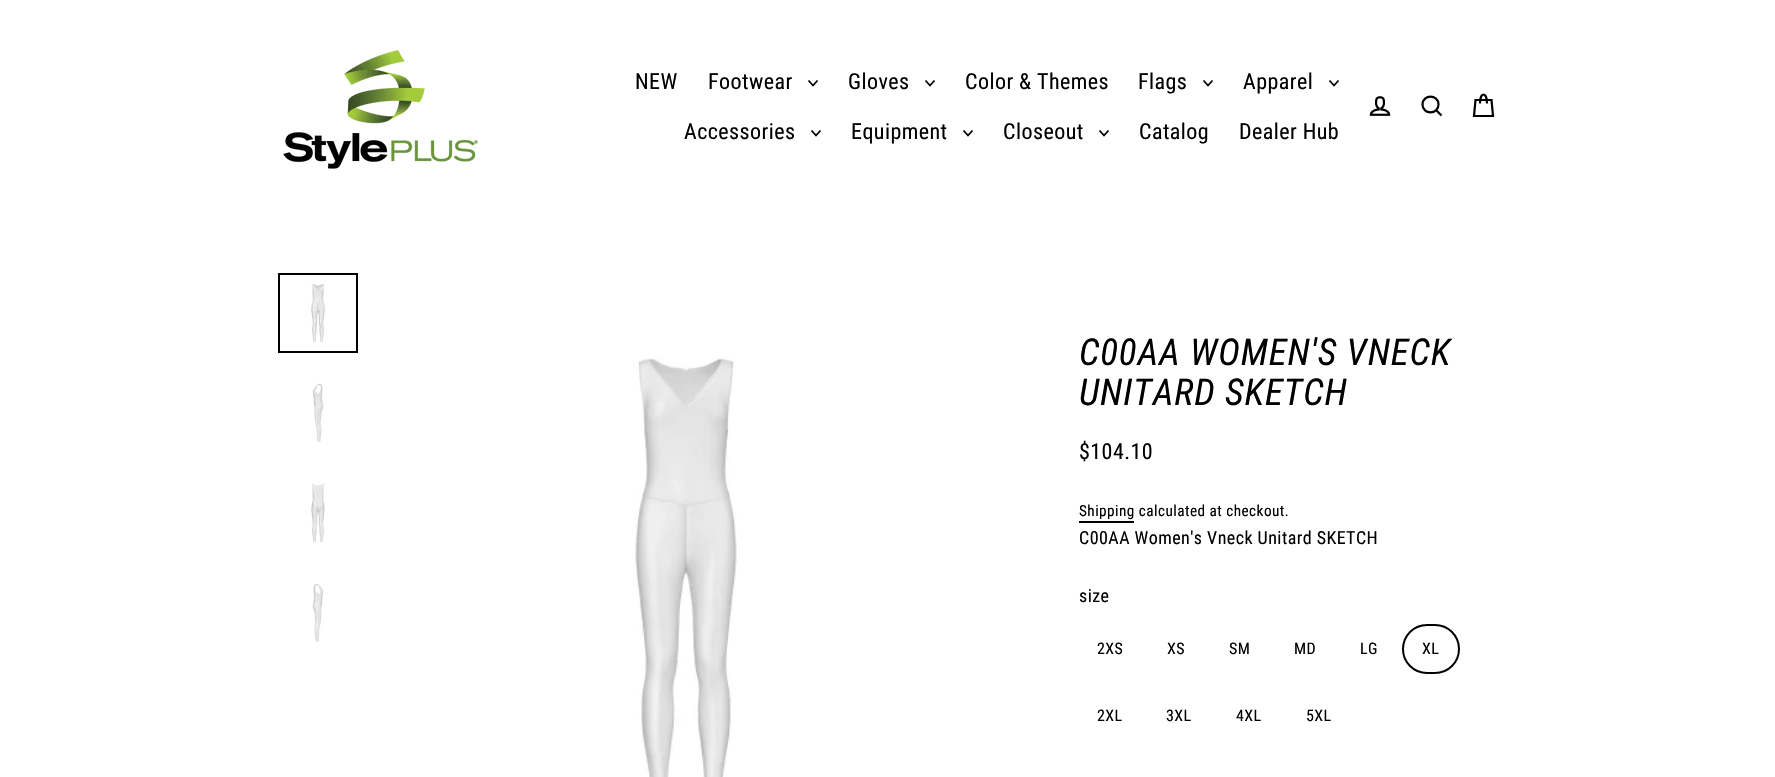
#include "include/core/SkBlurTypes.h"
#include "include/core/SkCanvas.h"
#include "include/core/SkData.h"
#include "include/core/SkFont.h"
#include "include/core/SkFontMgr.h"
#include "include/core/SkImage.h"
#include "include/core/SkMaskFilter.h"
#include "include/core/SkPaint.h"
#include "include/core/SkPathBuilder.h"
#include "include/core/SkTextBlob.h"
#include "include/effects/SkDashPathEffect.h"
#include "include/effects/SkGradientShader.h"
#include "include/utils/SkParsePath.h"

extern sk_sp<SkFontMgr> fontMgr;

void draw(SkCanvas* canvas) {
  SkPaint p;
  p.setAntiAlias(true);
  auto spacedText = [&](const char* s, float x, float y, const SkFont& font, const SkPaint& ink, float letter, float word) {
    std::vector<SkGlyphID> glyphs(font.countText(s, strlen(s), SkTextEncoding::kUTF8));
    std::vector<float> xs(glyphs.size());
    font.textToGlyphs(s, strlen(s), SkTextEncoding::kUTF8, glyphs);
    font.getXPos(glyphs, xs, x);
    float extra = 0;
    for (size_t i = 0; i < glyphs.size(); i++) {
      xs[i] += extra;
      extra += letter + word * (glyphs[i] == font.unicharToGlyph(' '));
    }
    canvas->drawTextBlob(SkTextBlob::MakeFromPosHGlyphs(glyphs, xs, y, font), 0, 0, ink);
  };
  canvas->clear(SK_ColorWHITE);
  canvas->drawImageRect(SkImages::DeferredFromEncodedData(SkData::MakeFromFileName("images/1.png")), SkRect::MakeLTRB(283, 50, 478, 169), SkSamplingOptions());
  p.setStyle(SkPaint::kStroke_Style);
  p.setStrokeWidth(1.8f);
  p.setColor(SK_ColorBLACK);
  canvas->drawPath(SkPathBuilder().moveTo(808.5f, 80.5f).lineTo(813, 85.5f).lineTo(817.5f, 80.5f).detach(), p);
  canvas->drawPath(SkPathBuilder().moveTo(925.5f, 80.5f).lineTo(930, 85.5f).lineTo(934.5f, 80.5f).detach(), p);
  canvas->drawPath(SkPathBuilder().moveTo(1203.5f, 80.5f).lineTo(1208, 85.5f).lineTo(1212.5f, 80.5f).detach(), p);
  canvas->drawPath(SkPathBuilder().moveTo(1329.5f, 80.5f).lineTo(1334, 85.5f).lineTo(1338.5f, 80.5f).detach(), p);
  canvas->drawPath(SkPathBuilder().moveTo(811.5f, 130.5f).lineTo(816, 135.5f).lineTo(820.5f, 130.5f).detach(), p);
  canvas->drawPath(SkPathBuilder().moveTo(963.5f, 130.5f).lineTo(968, 135.5f).lineTo(972.5f, 130.5f).detach(), p);
  canvas->drawPath(SkPathBuilder().moveTo(1099.5f, 130.5f).lineTo(1104, 135.5f).lineTo(1108.5f, 130.5f).detach(), p);
  canvas->drawImageRect(SkImages::DeferredFromEncodedData(SkData::MakeFromFileName("images/2.png")), SkRect::MakeLTRB(1369, 96, 1391, 116), SkSamplingOptions());
  p.setStrokeWidth(2.2f);
  canvas->drawPath(SkPathBuilder().moveTo(1438.5f, 104.5f).cubicTo(1438.5f, 115, 1422.5f, 115, 1422.5f, 104.5f).cubicTo(1422.5f, 94, 1438.5f, 94, 1438.5f, 104.5f).close().moveTo(1441.5f, 115.5f).lineTo(1436.5f, 110.5f).detach(), p);
  canvas->drawPath(SkPathBuilder().moveTo(1480, 103.5f).cubicTo(1480, 91.5f, 1487, 91.5f, 1487, 103.5f).moveTo(1475.5f, 100).lineTo(1491.5f, 100).lineTo(1493, 116).lineTo(1474, 116).close().detach(), p);
  canvas->drawImageRect(SkImages::DeferredFromEncodedData(SkData::MakeFromFileName("images/3.png")), SkRect::MakeLTRB(311, 284, 326, 342), SkSamplingOptions());
  p.setStrokeWidth(2);
  canvas->drawRect(SkRect::MakeLTRB(279, 274, 357, 352), p);
  canvas->drawImageRect(SkImages::DeferredFromEncodedData(SkData::MakeFromFileName("images/4.png")), SkRect::MakeLTRB(312, 383, 324, 442), SkSamplingOptions());
  canvas->drawImageRect(SkImages::DeferredFromEncodedData(SkData::MakeFromFileName("images/5.png")), SkRect::MakeLTRB(311, 484, 325, 542), SkSamplingOptions());
  canvas->drawImageRect(SkImages::DeferredFromEncodedData(SkData::MakeFromFileName("images/6.png")), SkRect::MakeLTRB(312, 584, 324, 642), SkSamplingOptions());
  canvas->drawImageRect(SkImages::DeferredFromEncodedData(SkData::MakeFromFileName("images/7.png")), SkRect::MakeLTRB(635, 357, 737, 777), SkSamplingOptions());
  p.setStyle(SkPaint::kFill_Style);
  canvas->drawRect(SkRect::MakeLTRB(1079, 521, 1134, 523), p);
  p.setStyle(SkPaint::kStroke_Style);
  canvas->drawRoundRect(SkRect::MakeLTRB(1403, 625, 1459, 673), 24, 24, p);
  SkFont font1(fontMgr->matchFamilyStyle("Roboto Condensed", SkFontStyle::Normal()), 22);
  font1.setSubpixel(true);
  p.setStyle(SkPaint::kFill_Style);
  spacedText("NEW", 635, 89, font1, p, 0.45f, 0);
  spacedText("Footwear", 708, 89, font1, p, 0.45f, 0);
  spacedText("Gloves", 848, 89, font1, p, 0.45f, 0);
  spacedText("Color & Themes", 965, 89, font1, p, 0.45f, 0);
  spacedText("Flags", 1138, 89, font1, p, 0.45f, 0);
  spacedText("Apparel", 1243, 89, font1, p, 0.45f, 0);
  spacedText("Accessories", 684, 139, font1, p, 0.45f, 0);
  spacedText("Equipment", 851, 139, font1, p, 0.45f, 0);
  spacedText("Closeout", 1003, 139, font1, p, 0.45f, 0);
  spacedText("Catalog", 1139, 139, font1, p, 0.45f, 0);
  spacedText("Dealer Hub", 1239, 139, font1, p, 0.45f, 0);
  SkFont font2(fontMgr->matchFamilyStyle("Roboto Condensed", SkFontStyle::Italic()), 37);
  font2.setSubpixel(true);
  spacedText("C00AA WOMEN'S VNECK", 1079, 365, font2, p, 0.9f, 0);
  spacedText("UNITARD SKETCH", 1079, 405, font2, p, 0.9f, 0);
  spacedText("$104.10", 1079, 459, font1, p, 0.45f, 0);
  SkFont font3(fontMgr->matchFamilyStyle("Roboto Condensed", SkFontStyle::Normal()), 15.25f);
  font3.setSubpixel(true);
  spacedText("Shipping calculated at checkout.", 1079, 516, font3, p, 0.45f, 0);
  SkFont font4(fontMgr->matchFamilyStyle("Roboto Condensed", SkFontStyle::Normal()), 18);
  font4.setSubpixel(true);
  spacedText("C00AA Women's Vneck Unitard SKETCH", 1079, 544, font4, p, 0.45f, 0);
  spacedText("size", 1079, 602, font4, p, 0.45f, 0);
  SkFont font5(fontMgr->matchFamilyStyle("Roboto Condensed", SkFontStyle::Normal()), 16);
  font5.setSubpixel(true);
  spacedText("2XS", 1097, 654, font5, p, 0.45f, 0);
  spacedText("XS", 1167, 654, font5, p, 0.45f, 0);
  spacedText("SM", 1229, 654, font5, p, 0.45f, 0);
  spacedText("MD", 1294, 654, font5, p, 0.45f, 0);
  spacedText("LG", 1360, 654, font5, p, 0.45f, 0);
  spacedText("XL", 1422, 654, font5, p, 0.45f, 0);
  spacedText("2XL", 1097, 721, font5, p, 0.45f, 0);
  spacedText("3XL", 1166, 721, font5, p, 0.45f, 0);
  spacedText("4XL", 1236, 721, font5, p, 0.45f, 0);
  spacedText("5XL", 1306, 721, font5, p, 0.45f, 0);
}
